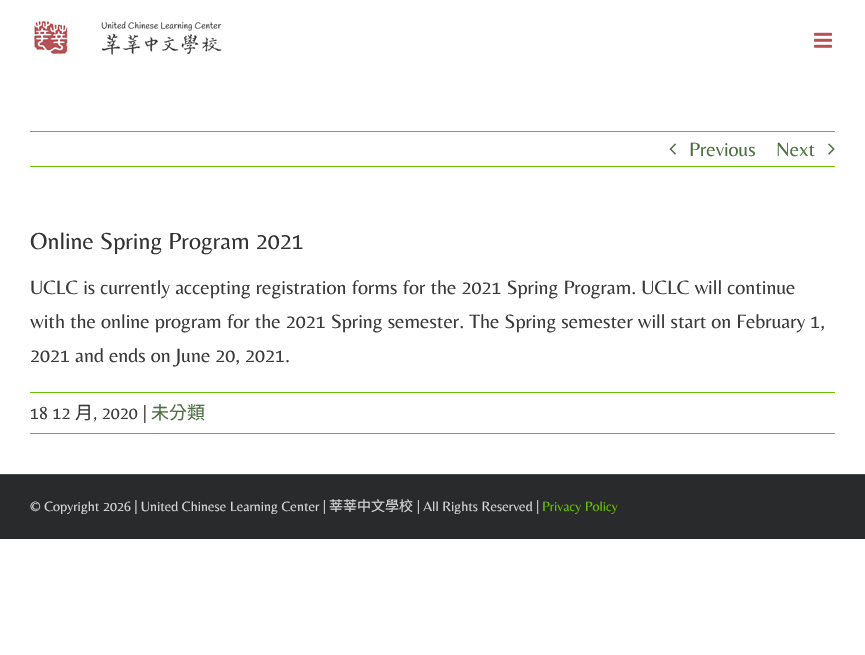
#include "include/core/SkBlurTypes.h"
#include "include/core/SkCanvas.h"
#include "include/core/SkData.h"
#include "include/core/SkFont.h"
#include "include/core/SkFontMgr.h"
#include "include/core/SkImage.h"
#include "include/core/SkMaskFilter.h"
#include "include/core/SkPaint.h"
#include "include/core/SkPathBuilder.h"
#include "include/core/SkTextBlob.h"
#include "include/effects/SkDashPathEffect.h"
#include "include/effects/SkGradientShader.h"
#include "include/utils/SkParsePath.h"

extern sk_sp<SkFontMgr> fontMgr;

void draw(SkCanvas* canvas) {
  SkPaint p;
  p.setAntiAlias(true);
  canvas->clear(SK_ColorWHITE);
  canvas->drawImageRect(SkImages::DeferredFromEncodedData(SkData::MakeFromFileName("images/1.png")), SkRect::MakeLTRB(34, 21, 222, 55), SkSamplingOptions());
  canvas->drawImageRect(SkImages::DeferredFromEncodedData(SkData::MakeFromFileName("images/2.png")), SkRect::MakeLTRB(814, 32, 832, 48), SkSamplingOptions());
  p.setColor(SkColorSetRGB(103, 193, 0));
  canvas->drawRect(SkRect::MakeLTRB(30, 131, 835, 132), p);
  canvas->drawRect(SkRect::MakeLTRB(30, 166, 835, 167), p);
  canvas->drawImageRect(SkImages::DeferredFromEncodedData(SkData::MakeFromFileName("images/3.png")), SkRect::MakeLTRB(669, 143, 676, 155), SkSamplingOptions());
  canvas->drawImageRect(SkImages::DeferredFromEncodedData(SkData::MakeFromFileName("images/4.png")), SkRect::MakeLTRB(828, 143, 835, 155), SkSamplingOptions());
  canvas->drawRect(SkRect::MakeLTRB(30, 392, 835, 393), p);
  canvas->drawRect(SkRect::MakeLTRB(30, 433, 835, 434), p);
  p.setColor(SkColorSetRGB(40, 42, 43));
  canvas->drawRect(SkRect::MakeLTRB(0, 475, 865, 539), p);
  p.setColor(SkColorSetRGB(75, 76, 77));
  canvas->drawRect(SkRect::MakeLTRB(0, 474, 865, 475), p);
  SkFont font1(fontMgr->matchFamilyStyle("Belleza", SkFontStyle::Normal()), 20);
  font1.setSubpixel(true);
  p.setColor(SkColorSetRGB(79, 111, 67));
  canvas->drawString("Previous", 689, 156, font1, p);
  canvas->drawString("Next", 776, 156, font1, p);
  SkFont font2(fontMgr->matchFamilyStyle("Belleza", SkFontStyle::Normal()), 24);
  font2.setSubpixel(true);
  p.setColor(SkColorSetRGB(51, 51, 51));
  canvas->drawString("Online Spring Program 2021", 30, 249, font2, p);
  p.setColor(SkColorSetRGB(58, 58, 58));
  canvas->drawString("UCLC is currently accepting registration forms for the 2021 Spring Program. UCLC will continue", 30, 294, font1, p);
  canvas->drawString("with the online program for the 2021 Spring semester. The Spring semester will start on February 1,", 30, 328, font1, p);
  canvas->drawString("2021 and ends on June 20, 2021.", 30, 362, font1, p);
  SkFont font3(fontMgr->matchFamilyStyle("Belleza", SkFontStyle::Normal()), 18);
  font3.setSubpixel(true);
  canvas->drawString("18 12", 30, 419, font3, p);
  SkFont font4(fontMgr->matchFamilyStyle("Noto Sans CJK TC", SkFontStyle::Normal()), 18);
  font4.setSubpixel(true);
  canvas->drawString("月", 75, 419, font4, p);
  canvas->drawString(", 2020", 93, 419, font3, p);
  canvas->drawString("|", 143, 419, font3, p);
  p.setColor(SkColorSetRGB(79, 111, 67));
  canvas->drawString("未分類", 151, 419, font4, p);
  SkFont font5(fontMgr->matchFamilyStyle("Belleza", SkFontStyle::Normal()), 14);
  font5.setSubpixel(true);
  p.setColor(SkColorSetRGB(214, 214, 214));
  canvas->drawString("© Copyright 2026 | United Chinese Learning Center |", 30, 511, font5, p);
  SkFont font6(fontMgr->matchFamilyStyle("Noto Sans CJK TC", SkFontStyle::Normal()), 14);
  font6.setSubpixel(true);
  canvas->drawString("莘莘中文學校", 329, 511, font6, p);
  canvas->drawString("| All Rights Reserved |", 417, 511, font5, p);
  p.setColor(SkColorSetRGB(103, 193, 0));
  canvas->drawString("Privacy Policy", 542, 511, font5, p);
}
